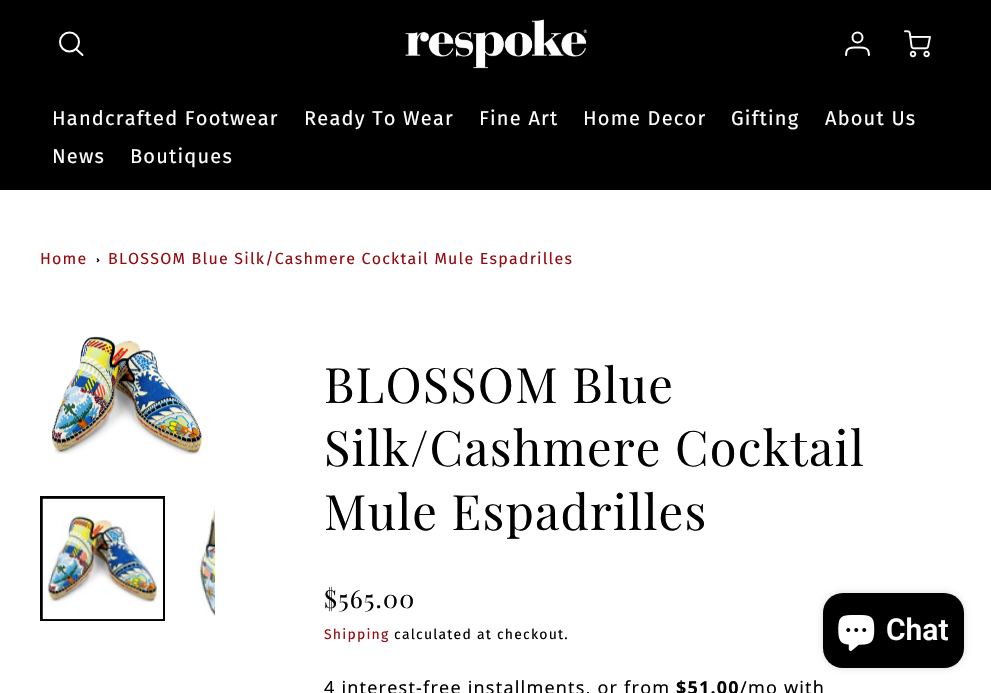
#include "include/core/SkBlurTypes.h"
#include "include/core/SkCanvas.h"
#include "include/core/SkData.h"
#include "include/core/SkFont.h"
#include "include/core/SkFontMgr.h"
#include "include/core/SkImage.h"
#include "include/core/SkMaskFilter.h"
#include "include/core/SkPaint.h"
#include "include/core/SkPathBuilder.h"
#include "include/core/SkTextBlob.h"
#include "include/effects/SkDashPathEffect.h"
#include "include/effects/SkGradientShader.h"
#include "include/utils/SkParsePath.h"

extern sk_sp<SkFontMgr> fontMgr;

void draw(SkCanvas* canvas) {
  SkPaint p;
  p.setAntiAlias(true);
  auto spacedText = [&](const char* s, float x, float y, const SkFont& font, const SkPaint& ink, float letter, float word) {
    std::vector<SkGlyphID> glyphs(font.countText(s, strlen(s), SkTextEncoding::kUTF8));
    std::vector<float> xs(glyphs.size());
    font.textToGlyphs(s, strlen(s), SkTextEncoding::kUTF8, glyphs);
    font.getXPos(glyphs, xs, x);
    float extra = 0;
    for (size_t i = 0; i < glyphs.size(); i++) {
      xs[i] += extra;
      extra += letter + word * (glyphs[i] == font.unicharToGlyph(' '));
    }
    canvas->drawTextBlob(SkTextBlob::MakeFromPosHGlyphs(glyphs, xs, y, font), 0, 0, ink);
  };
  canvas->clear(SK_ColorWHITE);
  p.setColor(SK_ColorBLACK);
  canvas->drawRect(SkRect::MakeLTRB(0, 0, 991, 190), p);
  p.setStyle(SkPaint::kStroke_Style);
  p.setStrokeWidth(2);
  p.setColor(SK_ColorWHITE);
  canvas->drawCircle(69.5f, 42, 9.5f, p);
  p.setStrokeCap(SkPaint::kRound_Cap);
  p.setStrokeJoin(SkPaint::kRound_Join);
  canvas->drawPath(SkPathBuilder().moveTo(82.5f, 55).lineTo(76, 49).detach(), p);
  canvas->drawImageRect(SkImages::DeferredFromEncodedData(SkData::MakeFromFileName("images/1.png")), SkRect::MakeLTRB(405, 19, 588, 69), SkSamplingOptions());
  p.setStrokeCap(SkPaint::kButt_Cap);
  p.setStrokeJoin(SkPaint::kMiter_Join);
  canvas->drawCircle(857.5f, 37.5f, 5, p);
  p.setStrokeCap(SkPaint::kRound_Cap);
  p.setStrokeJoin(SkPaint::kRound_Join);
  canvas->drawPath(SkPathBuilder().moveTo(869, 55).lineTo(868.5f, 51.5f).cubicTo(867.5f, 46.5f, 861, 47.5f, 857.5f, 47.5f).cubicTo(854, 47.5f, 847.5f, 46.5f, 846.5f, 51.5f).lineTo(846, 55).detach(), p);
  canvas->drawImageRect(SkImages::DeferredFromEncodedData(SkData::MakeFromFileName("images/2.png")), SkRect::MakeLTRB(904, 30, 931, 58), SkSamplingOptions());
  p.setStyle(SkPaint::kFill_Style);
  p.setColor(SK_ColorBLACK);
  canvas->drawPath(SkPathBuilder().moveTo(97.5f, 258).lineTo(99.5f, 260.5f).lineTo(98.5f, 261).lineTo(96.5f, 259).close().detach(), p);
  canvas->drawPath(SkPathBuilder().moveTo(98.5f, 259.5f).lineTo(99.5f, 260.5f).lineTo(97.5f, 262.5f).lineTo(96.5f, 261.5f).close().detach(), p);
  canvas->drawImageRect(SkImages::DeferredFromEncodedData(SkData::MakeFromFileName("images/3.png")), SkRect::MakeLTRB(51, 336, 202, 455), SkSamplingOptions());
  p.setStyle(SkPaint::kStroke_Style);
  p.setStrokeWidth(3);
  p.setStrokeCap(SkPaint::kButt_Cap);
  p.setStrokeJoin(SkPaint::kMiter_Join);
  canvas->drawRect(SkRect::MakeLTRB(41.5f, 497.5f, 163.5f, 619.5f), p);
  p.setStyle(SkPaint::kFill_Style);
  p.setColor(SK_ColorWHITE);
  canvas->drawRect(SkRect::MakeLTRB(43, 499, 163, 619), p);
  canvas->drawImageRect(SkImages::DeferredFromEncodedData(SkData::MakeFromFileName("images/4.png")), SkRect::MakeLTRB(42, 498, 163, 620), SkSamplingOptions());
  canvas->drawImageRect(SkImages::DeferredFromEncodedData(SkData::MakeFromFileName("images/5.png")), SkRect::MakeLTRB(197, 506, 215, 617), SkSamplingOptions());
  p.setColor(SkColorSetARGB(38, 0, 0, 0));
  p.setMaskFilter(SkMaskFilter::MakeBlur(kNormal_SkBlurStyle, 3));
  canvas->drawRoundRect(SkRect::MakeLTRB(823, 593, 964, 668), 20, 20, p);
  p.setMaskFilter(nullptr);
  p.setColor(SK_ColorBLACK);
  canvas->drawRoundRect(SkRect::MakeLTRB(823, 593, 964, 668), 20, 20, p);
  canvas->drawImageRect(SkImages::DeferredFromEncodedData(SkData::MakeFromFileName("images/6.png")), SkRect::MakeLTRB(838, 615, 875, 651), SkSamplingOptions());
  SkFont font1(fontMgr->matchFamilyStyle("Fira Sans", SkFontStyle::Normal()), 20);
  font1.setSubpixel(true);
  p.setColor(SK_ColorWHITE);
  spacedText("Handcrafted Footwear", 52, 125, font1, p, 1.2f, 0);
  spacedText("Ready To Wear", 304, 125, font1, p, 1.2f, 0);
  spacedText("Fine Art", 479, 125, font1, p, 1.2f, 0);
  spacedText("Home Decor", 583, 125, font1, p, 1.2f, 0);
  spacedText("Gifting", 731, 125, font1, p, 1.2f, 0);
  spacedText("About Us", 825, 125, font1, p, 1.2f, 0);
  spacedText("News", 52, 163, font1, p, 1.2f, 0);
  spacedText("Boutiques", 130, 163, font1, p, 1.2f, 0);
  SkFont font2(fontMgr->matchFamilyStyle("Fira Sans", SkFontStyle::Normal()), 16);
  font2.setSubpixel(true);
  p.setColor(SkColorSetRGB(149, 12, 16));
  spacedText("Home", 40, 264, font2, p, 1.2f, 0);
  spacedText("BLOSSOM Blue Silk/Cashmere Cocktail Mule Espadrilles", 108, 264, font2, p, 1.2f, 0);
  SkFont font3(fontMgr->matchFamilyStyle("Playfair Display", SkFontStyle::Normal()), 48.75f);
  font3.setSubpixel(true);
  p.setColor(SK_ColorBLACK);
  spacedText("BLOSSOM Blue", 324, 403, font3, p, 1.2f, 0);
  spacedText("Silk/Cashmere Cocktail", 324, 466, font3, p, 1.2f, 0);
  spacedText("Mule Espadrilles", 324, 530, font3, p, 1.2f, 0);
  SkFont font4(fontMgr->matchFamilyStyle("Playfair Display", SkFontStyle::Normal()), 25);
  font4.setSubpixel(true);
  spacedText("$565.00", 324, 608, font4, p, 1.2f, 0);
  SkFont font5(fontMgr->matchFamilyStyle("Fira Sans", SkFontStyle::Normal()), 14);
  font5.setSubpixel(true);
  p.setColor(SkColorSetRGB(149, 12, 16));
  spacedText("Shipping", 324, 639, font5, p, 1.2f, 0);
  p.setColor(SK_ColorBLACK);
  spacedText("calculated at checkout.", 394, 639, font5, p, 1.2f, 0);
  SkFont font6(fontMgr->matchFamilyStyle("Noto Sans", SkFontStyle::Normal()), 18);
  font6.setSubpixel(true);
  spacedText("4 interest-free installments, or from", 324, 694, font6, p, 1.2f, 0);
  SkFont font7(fontMgr->matchFamilyStyle("Noto Sans", SkFontStyle::Bold()), 18);
  font7.setSubpixel(true);
  spacedText("$51.00", 676, 694, font7, p, 1.2f, 0);
  spacedText("/mo with", 740, 694, font6, p, 1.2f, 0);
  SkFont font8(fontMgr->matchFamilyStyle("Roboto", SkFontStyle(600, SkFontStyle::kNormal_Width, SkFontStyle::kUpright_Slant)), 30);
  font8.setSubpixel(true);
  p.setColor(SK_ColorWHITE);
  canvas->drawString("Chat", 886, 640, font8, p);
}
